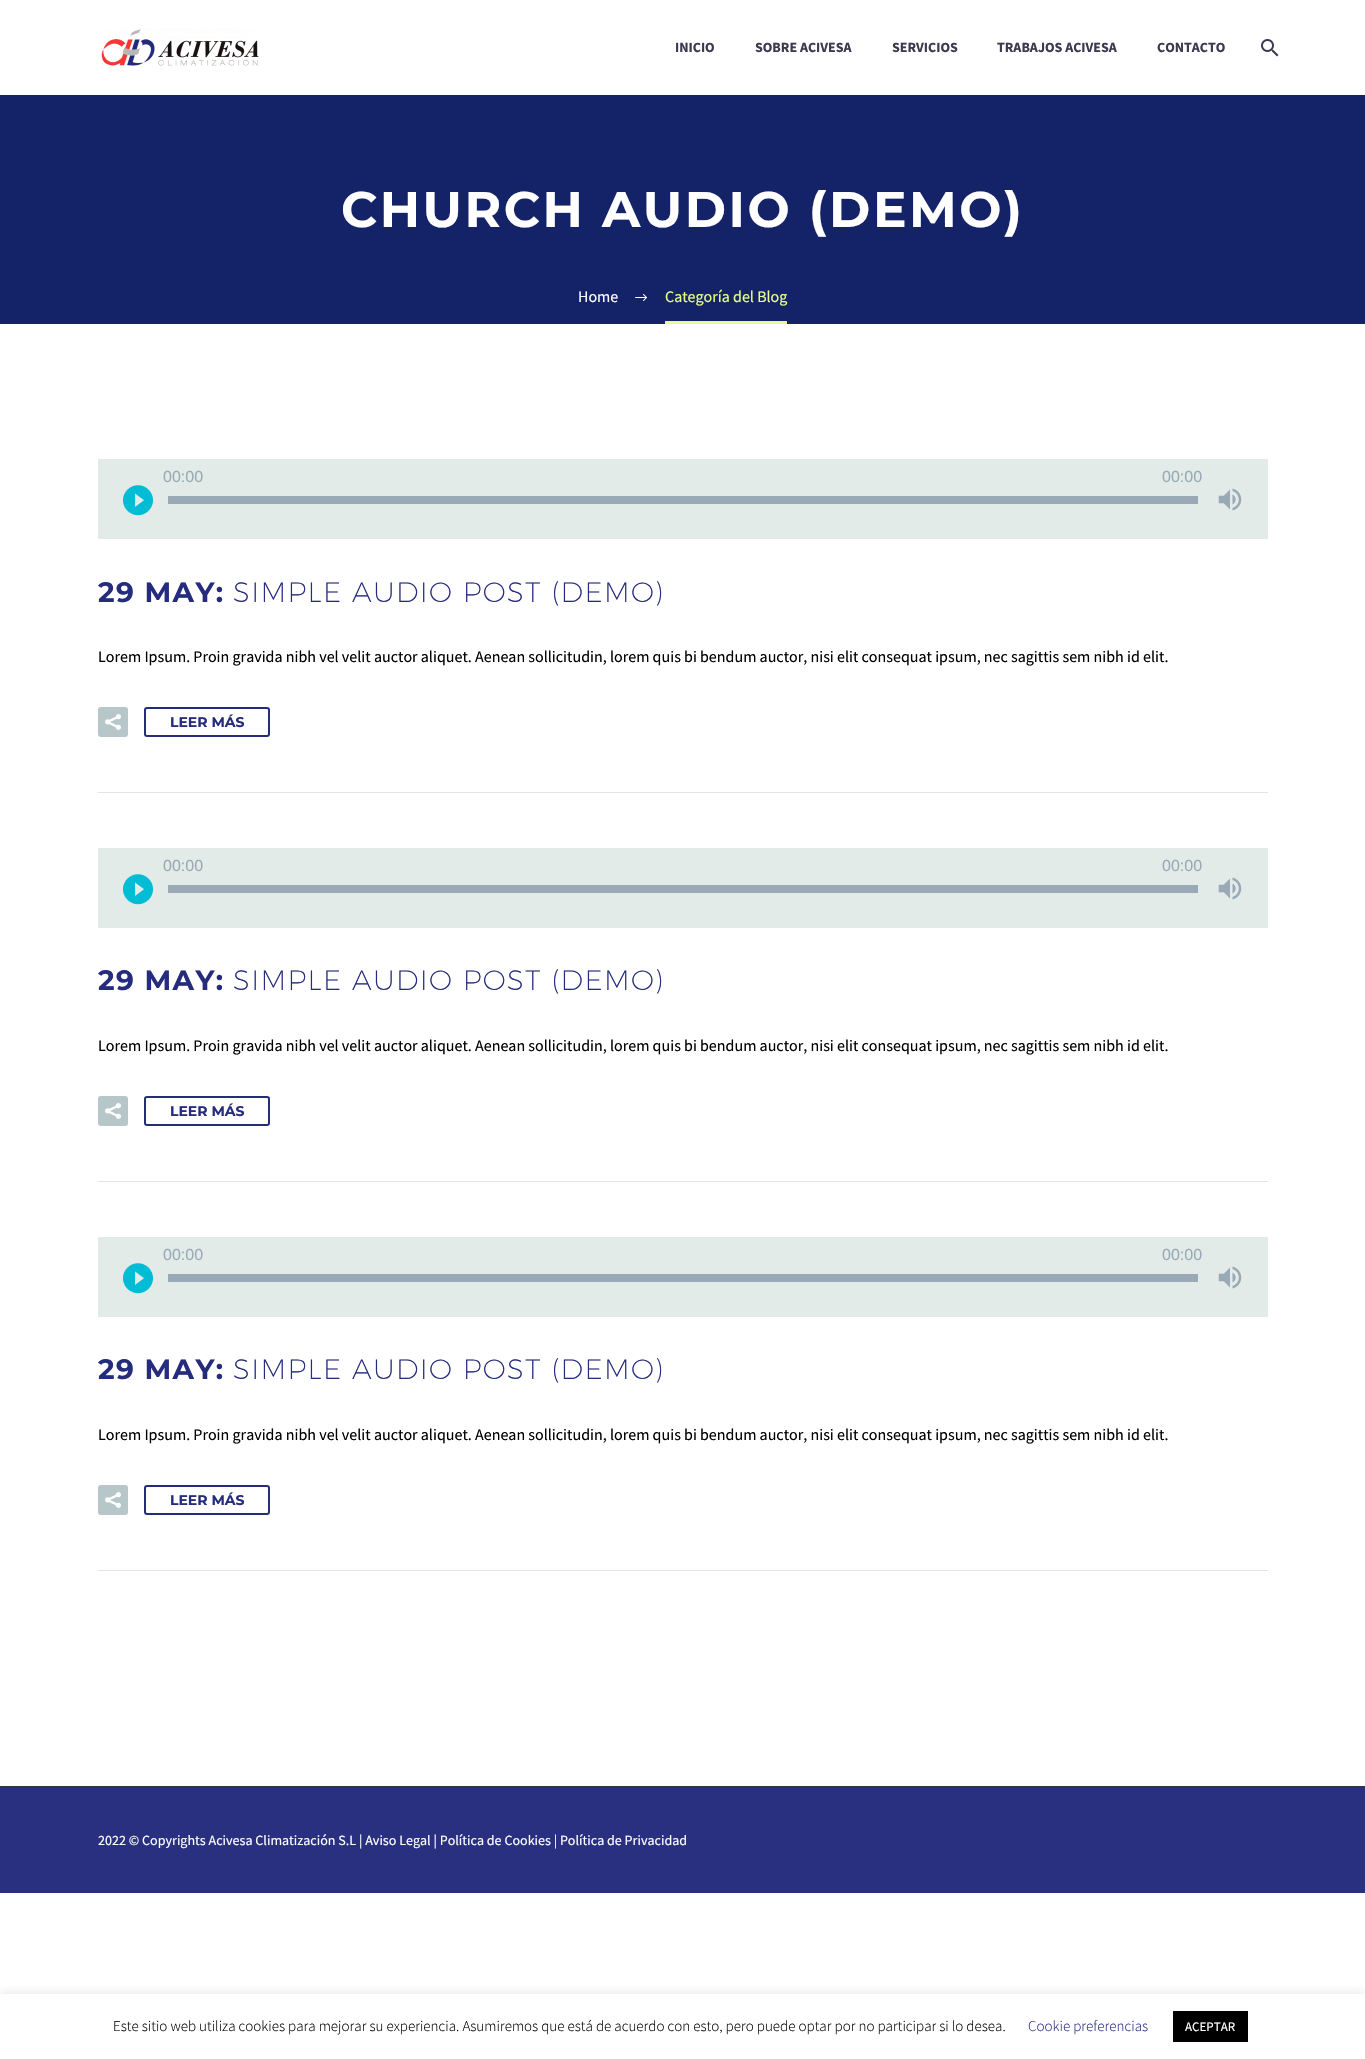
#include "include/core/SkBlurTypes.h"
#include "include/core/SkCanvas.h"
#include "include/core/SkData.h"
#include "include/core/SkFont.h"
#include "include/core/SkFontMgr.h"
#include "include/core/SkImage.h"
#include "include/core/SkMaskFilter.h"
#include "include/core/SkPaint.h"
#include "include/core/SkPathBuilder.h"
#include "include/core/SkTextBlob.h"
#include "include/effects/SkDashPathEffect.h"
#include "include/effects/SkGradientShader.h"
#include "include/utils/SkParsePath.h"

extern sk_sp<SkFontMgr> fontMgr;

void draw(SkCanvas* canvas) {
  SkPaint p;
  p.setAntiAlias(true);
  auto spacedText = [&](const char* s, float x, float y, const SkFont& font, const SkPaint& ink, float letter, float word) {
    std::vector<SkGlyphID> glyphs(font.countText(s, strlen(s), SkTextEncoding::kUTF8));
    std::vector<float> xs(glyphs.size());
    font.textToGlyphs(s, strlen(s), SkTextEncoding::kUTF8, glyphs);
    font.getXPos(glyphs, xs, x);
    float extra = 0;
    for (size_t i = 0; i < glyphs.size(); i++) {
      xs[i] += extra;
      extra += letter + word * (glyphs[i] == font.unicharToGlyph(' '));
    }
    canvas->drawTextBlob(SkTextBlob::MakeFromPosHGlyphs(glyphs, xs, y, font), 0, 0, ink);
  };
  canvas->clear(SK_ColorWHITE);
  canvas->drawImageRect(SkImages::DeferredFromEncodedData(SkData::MakeFromFileName("images/1.png")), SkRect::MakeLTRB(101, 28, 259, 66), SkSamplingOptions());
  canvas->drawImageRect(SkImages::DeferredFromEncodedData(SkData::MakeFromFileName("images/2.png")), SkRect::MakeLTRB(1261, 39, 1279, 57), SkSamplingOptions());
  p.setColor(SkColorSetRGB(20, 34, 104));
  canvas->drawRect(SkRect::MakeLTRB(0, 95, 1365, 324), p);
  canvas->drawImageRect(SkImages::DeferredFromEncodedData(SkData::MakeFromFileName("images/3.png")), SkRect::MakeLTRB(635, 294, 647, 301), SkSamplingOptions());
  p.setColor(SkColorSetRGB(231, 255, 137));
  canvas->drawRect(SkRect::MakeLTRB(665, 321, 787, 324), p);
  p.setColor(SkColorSetRGB(223, 229, 232));
  canvas->drawRect(SkRect::MakeLTRB(98, 792, 1268, 793), p);
  p.setColor(SkColorSetRGB(227, 235, 232));
  canvas->drawRect(SkRect::MakeLTRB(98, 459, 1268, 539), p);
  canvas->drawImageRect(SkImages::DeferredFromEncodedData(SkData::MakeFromFileName("images/4.png")), SkRect::MakeLTRB(123, 485, 153, 516), SkSamplingOptions());
  p.setColor(SkColorSetRGB(153, 169, 181));
  canvas->drawRect(SkRect::MakeLTRB(168, 496, 1198, 504), p);
  canvas->drawImageRect(SkImages::DeferredFromEncodedData(SkData::MakeFromFileName("images/5.png")), SkRect::MakeLTRB(1218, 488, 1242, 511), SkSamplingOptions());
  p.setColor(SkColorSetRGB(182, 198, 201));
  canvas->drawRoundRect(SkRect::MakeLTRB(98, 707, 128, 737), 3, 3, p);
  canvas->drawImageRect(SkImages::DeferredFromEncodedData(SkData::MakeFromFileName("images/6.png")), SkRect::MakeLTRB(105, 714, 121, 730), SkSamplingOptions());
  p.setStyle(SkPaint::kStroke_Style);
  p.setStrokeWidth(2);
  p.setColor(SkColorSetRGB(38, 44, 124));
  canvas->drawRoundRect(SkRect::MakeLTRB(145, 708, 269, 736), 2, 2, p);
  p.setStyle(SkPaint::kFill_Style);
  p.setColor(SkColorSetRGB(223, 229, 232));
  canvas->drawRect(SkRect::MakeLTRB(98, 1181, 1268, 1182), p);
  p.setColor(SkColorSetRGB(227, 235, 232));
  canvas->drawRect(SkRect::MakeLTRB(98, 848, 1268, 928), p);
  canvas->drawImageRect(SkImages::DeferredFromEncodedData(SkData::MakeFromFileName("images/4.png")), SkRect::MakeLTRB(123, 874, 153, 905), SkSamplingOptions());
  p.setColor(SkColorSetRGB(153, 169, 181));
  canvas->drawRect(SkRect::MakeLTRB(168, 885, 1198, 893), p);
  canvas->drawImageRect(SkImages::DeferredFromEncodedData(SkData::MakeFromFileName("images/5.png")), SkRect::MakeLTRB(1218, 877, 1242, 900), SkSamplingOptions());
  p.setColor(SkColorSetRGB(182, 198, 201));
  canvas->drawRoundRect(SkRect::MakeLTRB(98, 1096, 128, 1126), 3, 3, p);
  canvas->drawImageRect(SkImages::DeferredFromEncodedData(SkData::MakeFromFileName("images/6.png")), SkRect::MakeLTRB(105, 1103, 121, 1119), SkSamplingOptions());
  p.setStyle(SkPaint::kStroke_Style);
  p.setColor(SkColorSetRGB(38, 44, 124));
  canvas->drawRoundRect(SkRect::MakeLTRB(145, 1097, 269, 1125), 2, 2, p);
  p.setStyle(SkPaint::kFill_Style);
  p.setColor(SkColorSetRGB(223, 229, 232));
  canvas->drawRect(SkRect::MakeLTRB(98, 1570, 1268, 1571), p);
  p.setColor(SkColorSetRGB(227, 235, 232));
  canvas->drawRect(SkRect::MakeLTRB(98, 1237, 1268, 1317), p);
  canvas->drawImageRect(SkImages::DeferredFromEncodedData(SkData::MakeFromFileName("images/4.png")), SkRect::MakeLTRB(123, 1263, 153, 1294), SkSamplingOptions());
  p.setColor(SkColorSetRGB(153, 169, 181));
  canvas->drawRect(SkRect::MakeLTRB(168, 1274, 1198, 1282), p);
  canvas->drawImageRect(SkImages::DeferredFromEncodedData(SkData::MakeFromFileName("images/5.png")), SkRect::MakeLTRB(1218, 1266, 1242, 1289), SkSamplingOptions());
  p.setColor(SkColorSetRGB(182, 198, 201));
  canvas->drawRoundRect(SkRect::MakeLTRB(98, 1485, 128, 1515), 3, 3, p);
  canvas->drawImageRect(SkImages::DeferredFromEncodedData(SkData::MakeFromFileName("images/6.png")), SkRect::MakeLTRB(105, 1492, 121, 1508), SkSamplingOptions());
  p.setStyle(SkPaint::kStroke_Style);
  p.setColor(SkColorSetRGB(38, 44, 124));
  canvas->drawRoundRect(SkRect::MakeLTRB(145, 1486, 269, 1514), 2, 2, p);
  p.setStyle(SkPaint::kFill_Style);
  p.setColor(SkColorSetRGB(51, 53, 60));
  canvas->drawRect(SkRect::MakeLTRB(0, 1786, 1365, 1787), p);
  p.setColor(SkColorSetRGB(41, 48, 127));
  canvas->drawRect(SkRect::MakeLTRB(0, 1788, 1365, 1893), p);
  p.setColor(SkColorSetRGB(49, 54, 70));
  canvas->drawRect(SkRect::MakeLTRB(0, 1787, 1365, 1788), p);
  canvas->save();
  canvas->clipRect(SkRect::MakeLTRB(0, 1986, 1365, 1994));
  p.setColor(SkColorSetARGB(77, 172, 171, 171));
  p.setMaskFilter(SkMaskFilter::MakeBlur(kNormal_SkBlurStyle, 5));
  canvas->drawRect(SkRect::MakeLTRB(0, 1993, 1365, 2058), p);
  p.setMaskFilter(nullptr);
  canvas->restore();
  p.setColor(SK_ColorBLACK);
  canvas->drawRect(SkRect::MakeLTRB(1173, 2011, 1248, 2042), p);
  SkFont font1(fontMgr->matchFamilyStyle("Source Sans Pro", SkFontStyle::Bold()), 14);
  font1.setSubpixel(true);
  p.setColor(SkColorSetRGB(60, 57, 80));
  canvas->drawString("INICIO", 675, 52, font1, p);
  canvas->drawString("SOBRE ACIVESA", 755, 52, font1, p);
  canvas->drawString("SERVICIOS", 892, 52, font1, p);
  canvas->drawString("TRABAJOS ACIVESA", 997, 52, font1, p);
  canvas->drawString("CONTACTO", 1157, 52, font1, p);
  SkFont font2(fontMgr->matchFamilyStyle("Montserrat", SkFontStyle::Bold()), 50);
  font2.setSubpixel(true);
  p.setColor(SK_ColorWHITE);
  spacedText("CHURCH AUDIO (DEMO)", 341, 227, font2, p, 2.5f, 0);
  SkFont font3(fontMgr->matchFamilyStyle("Source Sans Pro", SkFontStyle::Normal()), 16);
  font3.setSubpixel(true);
  canvas->drawString("Home", 578, 302, font3, p);
  p.setColor(SkColorSetRGB(231, 255, 137));
  canvas->drawString("Categoría del Blog", 665, 302, font3, p);
  SkFont font4(fontMgr->matchFamilyStyle("Liberation Sans", SkFontStyle::Normal()), 16);
  font4.setSubpixel(true);
  p.setColor(SkColorSetRGB(153, 169, 181));
  canvas->drawString("00:00", 163, 482, font4, p);
  canvas->drawString("00:00", 1162, 482, font4, p);
  SkFont font5(fontMgr->matchFamilyStyle("Montserrat", SkFontStyle::Bold()), 28);
  font5.setSubpixel(true);
  p.setColor(SkColorSetRGB(38, 44, 124));
  spacedText("29 MAY:", 98, 602, font5, p, 1.4f, 0);
  SkFont font6(fontMgr->matchFamilyStyle("Montserrat", SkFontStyle(200, SkFontStyle::kNormal_Width, SkFontStyle::kUpright_Slant)), 28);
  font6.setSubpixel(true);
  spacedText("SIMPLE AUDIO POST (DEMO)", 233, 602, font6, p, 1.4f, 0);
  p.setColor(SK_ColorBLACK);
  canvas->drawString("Lorem Ipsum. Proin gravida nibh vel velit auctor aliquet. Aenean sollicitudin, lorem quis bi bendum auctor, nisi elit consequat ipsum, nec sagittis sem nibh id elit.", 98, 662, font3, p);
  SkFont font7(fontMgr->matchFamilyStyle("Montserrat", SkFontStyle::Bold()), 14);
  font7.setSubpixel(true);
  p.setColor(SkColorSetRGB(38, 44, 124));
  canvas->drawString("LEER MÁS", 170, 727, font7, p);
  p.setColor(SkColorSetRGB(153, 169, 181));
  canvas->drawString("00:00", 163, 871, font4, p);
  canvas->drawString("00:00", 1162, 871, font4, p);
  p.setColor(SkColorSetRGB(38, 44, 124));
  spacedText("29 MAY:", 98, 990, font5, p, 1.4f, 0);
  spacedText("SIMPLE AUDIO POST (DEMO)", 233, 990, font6, p, 1.4f, 0);
  p.setColor(SK_ColorBLACK);
  canvas->drawString("Lorem Ipsum. Proin gravida nibh vel velit auctor aliquet. Aenean sollicitudin, lorem quis bi bendum auctor, nisi elit consequat ipsum, nec sagittis sem nibh id elit.", 98, 1051, font3, p);
  p.setColor(SkColorSetRGB(38, 44, 124));
  canvas->drawString("LEER MÁS", 170, 1116, font7, p);
  p.setColor(SkColorSetRGB(153, 169, 181));
  canvas->drawString("00:00", 163, 1260, font4, p);
  canvas->drawString("00:00", 1162, 1260, font4, p);
  p.setColor(SkColorSetRGB(38, 44, 124));
  spacedText("29 MAY:", 98, 1379, font5, p, 1.4f, 0);
  spacedText("SIMPLE AUDIO POST (DEMO)", 233, 1379, font6, p, 1.4f, 0);
  p.setColor(SK_ColorBLACK);
  canvas->drawString("Lorem Ipsum. Proin gravida nibh vel velit auctor aliquet. Aenean sollicitudin, lorem quis bi bendum auctor, nisi elit consequat ipsum, nec sagittis sem nibh id elit.", 98, 1440, font3, p);
  p.setColor(SkColorSetRGB(38, 44, 124));
  canvas->drawString("LEER MÁS", 170, 1505, font7, p);
  SkFont font8(fontMgr->matchFamilyStyle("Source Sans Pro", SkFontStyle::Normal()), 14.05f);
  font8.setSubpixel(true);
  p.setColor(SK_ColorWHITE);
  canvas->drawString("2022 © Copyrights Acivesa Climatización S.L | Aviso Legal | Política de Cookies | Política de Privacidad", 98, 1845, font8, p);
  SkFont font9(fontMgr->matchFamilyStyle("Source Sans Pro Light", SkFontStyle(300, SkFontStyle::kNormal_Width, SkFontStyle::kUpright_Slant)), 15);
  font9.setSubpixel(true);
  p.setColor(SK_ColorBLACK);
  canvas->drawString("Este sitio web utiliza cookies para mejorar su experiencia. Asumiremos que está de acuerdo con esto, pero puede optar por no participar si lo desea.", 113, 2031, font9, p);
  p.setColor(SkColorSetRGB(38, 44, 124));
  canvas->drawString("Cookie preferencias", 1028, 2031, font9, p);
  SkFont font10(fontMgr->matchFamilyStyle("Source Sans Pro", SkFontStyle::Normal()), 13);
  font10.setSubpixel(true);
  p.setColor(SK_ColorWHITE);
  canvas->drawString("ACEPTAR", 1185, 2031, font10, p);
}
